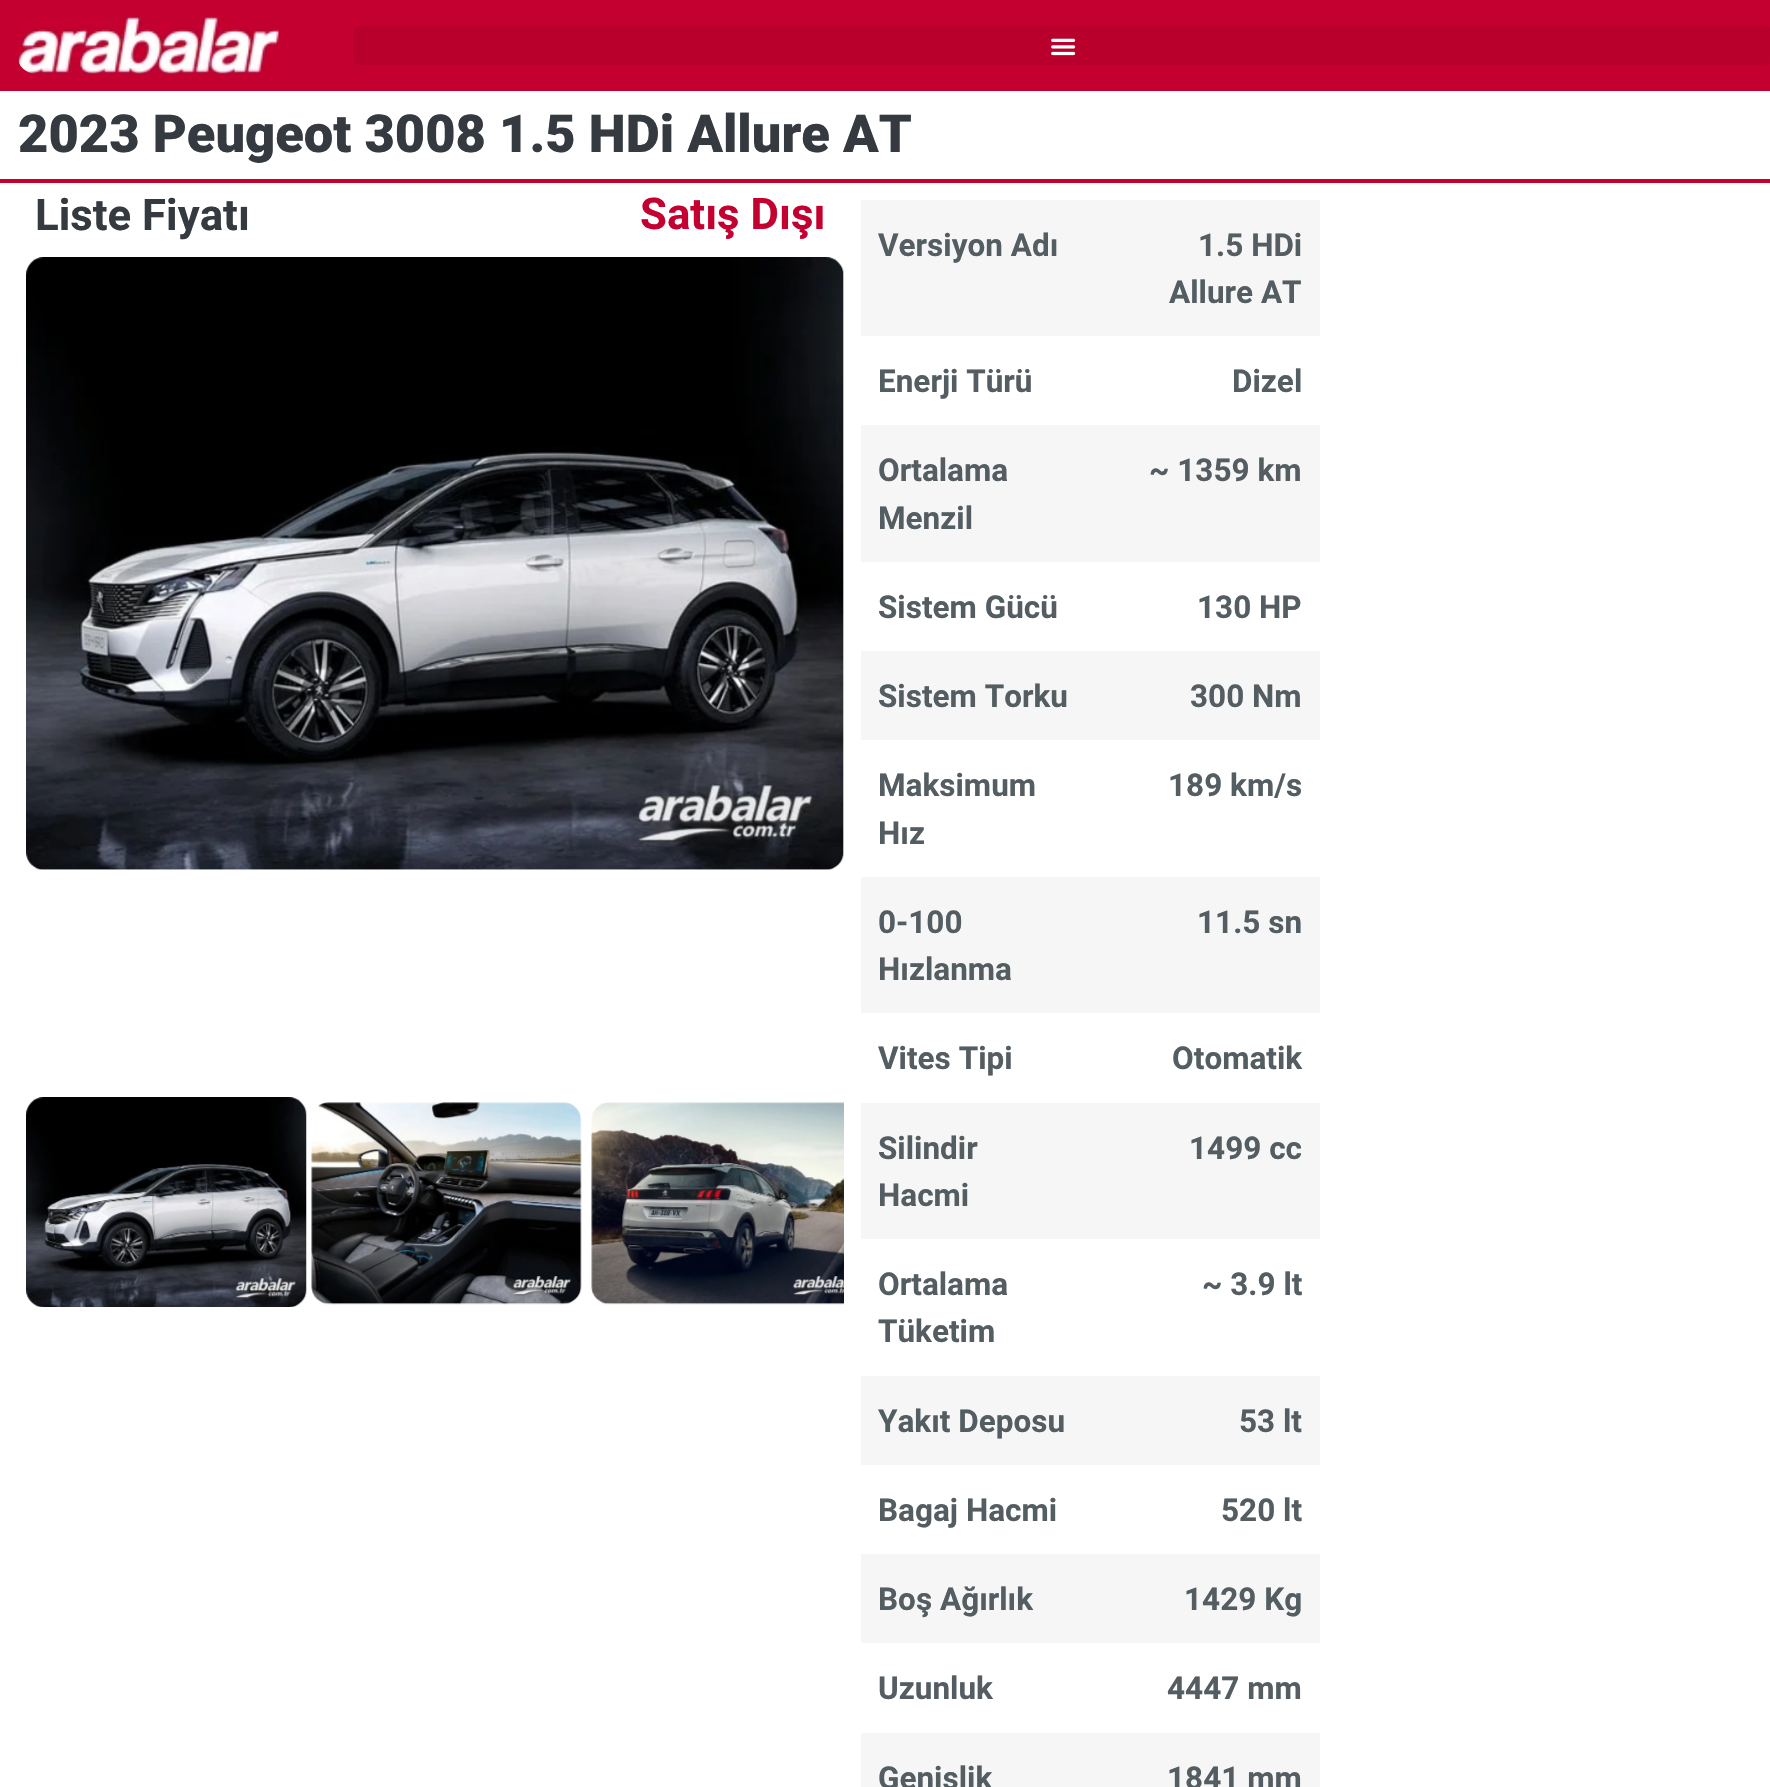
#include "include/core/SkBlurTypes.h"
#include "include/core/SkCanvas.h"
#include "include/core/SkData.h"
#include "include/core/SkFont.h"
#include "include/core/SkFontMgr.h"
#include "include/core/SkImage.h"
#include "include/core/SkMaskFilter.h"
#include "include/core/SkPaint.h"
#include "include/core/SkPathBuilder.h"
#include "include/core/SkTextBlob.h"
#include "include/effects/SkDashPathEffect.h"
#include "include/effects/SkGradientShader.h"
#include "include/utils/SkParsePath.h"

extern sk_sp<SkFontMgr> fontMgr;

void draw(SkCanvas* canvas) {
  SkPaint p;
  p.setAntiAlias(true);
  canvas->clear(SK_ColorWHITE);
  p.setColor(SkColorSetRGB(195, 0, 47));
  canvas->drawRect(SkRect::MakeLTRB(0, 0, 1770, 91), p);
  canvas->drawImageRect(SkImages::DeferredFromEncodedData(SkData::MakeFromFileName("images/1.png")), SkRect::MakeLTRB(17, 17, 280, 74), SkSamplingOptions());
  p.setColor(SkColorSetRGB(185, 0, 45));
  canvas->drawRoundRect(SkRect::MakeLTRB(354, 26, 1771, 65), 5, 5, p);
  canvas->drawImageRect(SkImages::DeferredFromEncodedData(SkData::MakeFromFileName("images/2.png")), SkRect::MakeLTRB(1051, 38, 1076, 56), SkSamplingOptions());
  p.setColor(SkColorSetRGB(195, 0, 47));
  canvas->drawRect(SkRect::MakeLTRB(0, 179, 1770, 183), p);
  canvas->drawImageRect(SkImages::DeferredFromEncodedData(SkData::MakeFromFileName("images/3.png")), SkRect::MakeLTRB(26, 257, 844, 870), SkSamplingOptions());
  canvas->drawImageRect(SkImages::DeferredFromEncodedData(SkData::MakeFromFileName("images/4.png")), SkRect::MakeLTRB(26, 1097, 307, 1307), SkSamplingOptions());
  canvas->drawImageRect(SkImages::DeferredFromEncodedData(SkData::MakeFromFileName("images/5.png")), SkRect::MakeLTRB(311, 1102, 582, 1305), SkSamplingOptions());
  canvas->drawImageRect(SkImages::DeferredFromEncodedData(SkData::MakeFromFileName("images/6.png")), SkRect::MakeLTRB(591, 1102, 844, 1305), SkSamplingOptions());
  p.setColor(SkColorSetRGB(246, 246, 246));
  canvas->drawRect(SkRect::MakeLTRB(861, 200, 1320, 336), p);
  canvas->drawRect(SkRect::MakeLTRB(861, 425, 1320, 562), p);
  canvas->drawRect(SkRect::MakeLTRB(861, 651, 1320, 740), p);
  canvas->drawRect(SkRect::MakeLTRB(861, 877, 1320, 1013), p);
  canvas->drawRect(SkRect::MakeLTRB(861, 1103, 1320, 1239), p);
  canvas->drawRect(SkRect::MakeLTRB(861, 1376, 1320, 1465), p);
  canvas->drawRect(SkRect::MakeLTRB(861, 1554, 1320, 1643), p);
  canvas->drawRect(SkRect::MakeLTRB(861, 1733, 1320, 1787), p);
  SkFont font1(fontMgr->matchFamilyStyle("Roboto", SkFontStyle(900, SkFontStyle::kNormal_Width, SkFontStyle::kUpright_Slant)), 52.5f);
  font1.setSubpixel(true);
  p.setColor(SkColorSetRGB(52, 58, 64));
  canvas->drawString("2023 Peugeot 3008 1.5 HDi Allure AT", 18, 152, font1, p);
  SkFont font2(fontMgr->matchFamilyStyle("Roboto", SkFontStyle::Bold()), 43.75f);
  font2.setSubpixel(true);
  canvas->drawString("Liste Fiyatı", 35, 230, font2, p);
  p.setColor(SkColorSetRGB(195, 0, 47));
  canvas->drawString("Satış Dışı", 640, 229, font2, p);
  SkFont font3(fontMgr->matchFamilyStyle("Roboto", SkFontStyle::Bold()), 31.5f);
  font3.setSubpixel(true);
  p.setColor(SkColorSetRGB(83, 93, 98));
  canvas->drawString("Versiyon Adı", 878, 256, font3, p);
  canvas->drawString("1.5 HDi", 1198, 256, font3, p);
  canvas->drawString("Allure AT", 1169, 303, font3, p);
  canvas->drawString("Enerji Türü", 878, 392, font3, p);
  canvas->drawString("Dizel", 1232, 392, font3, p);
  canvas->drawString("Ortalama", 878, 481, font3, p);
  canvas->drawString("Menzil", 878, 529, font3, p);
  canvas->drawString("~ 1359 km", 1149, 481, font3, p);
  canvas->drawString("Sistem Gücü", 878, 618, font3, p);
  canvas->drawString("130 HP", 1197, 618, font3, p);
  canvas->drawString("Sistem Torku", 878, 707, font3, p);
  canvas->drawString("300 Nm", 1190, 707, font3, p);
  canvas->drawString("Maksimum", 878, 796, font3, p);
  canvas->drawString("Hız", 878, 844, font3, p);
  canvas->drawString("189 km/s", 1168, 796, font3, p);
  canvas->drawString("0-100", 878, 933, font3, p);
  canvas->drawString("Hızlanma", 878, 980, font3, p);
  canvas->drawString("11.5 sn", 1197, 933, font3, p);
  canvas->drawString("Vites Tipi", 878, 1069, font3, p);
  canvas->drawString("Otomatik", 1172, 1069, font3, p);
  canvas->drawString("Silindir", 878, 1159, font3, p);
  canvas->drawString("Hacmi", 878, 1206, font3, p);
  canvas->drawString("1499 cc", 1189, 1159, font3, p);
  canvas->drawString("Ortalama", 878, 1295, font3, p);
  canvas->drawString("Tüketim", 878, 1342, font3, p);
  canvas->drawString("~ 3.9 lt", 1202, 1295, font3, p);
  canvas->drawString("Yakıt Deposu", 878, 1432, font3, p);
  canvas->drawString("53 lt", 1239, 1432, font3, p);
  canvas->drawString("Bagaj Hacmi", 878, 1521, font3, p);
  canvas->drawString("520 lt", 1221, 1521, font3, p);
  canvas->drawString("Boş Ağırlık", 878, 1610, font3, p);
  canvas->drawString("1429 Kg", 1184, 1610, font3, p);
  canvas->drawString("Uzunluk", 878, 1699, font3, p);
  canvas->drawString("4447 mm", 1167, 1699, font3, p);
  canvas->drawString("Genişlik", 878, 1789, font3, p);
  canvas->drawString("1841 mm", 1167, 1789, font3, p);
}
